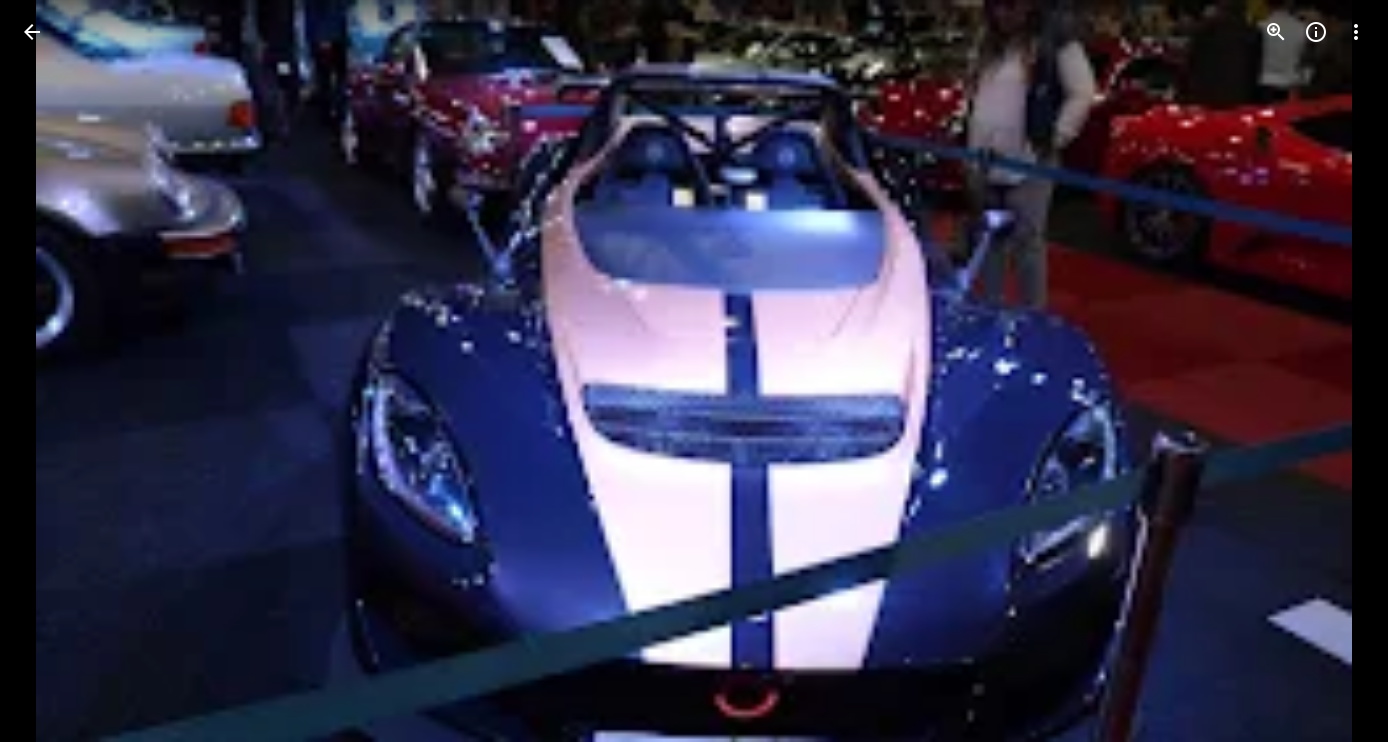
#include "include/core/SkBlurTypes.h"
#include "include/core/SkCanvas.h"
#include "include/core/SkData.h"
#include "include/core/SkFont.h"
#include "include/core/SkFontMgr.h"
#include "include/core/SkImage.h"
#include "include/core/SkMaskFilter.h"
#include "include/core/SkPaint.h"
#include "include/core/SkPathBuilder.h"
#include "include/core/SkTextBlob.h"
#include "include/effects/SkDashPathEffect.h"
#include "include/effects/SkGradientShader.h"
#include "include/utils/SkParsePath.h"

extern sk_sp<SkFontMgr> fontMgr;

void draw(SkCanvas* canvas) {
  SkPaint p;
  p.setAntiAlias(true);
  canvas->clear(SK_ColorBLACK);
  canvas->drawImageRect(SkImages::DeferredFromEncodedData(SkData::MakeFromFileName("images/5.png")), SkRect::MakeLTRB(36, 0, 1352, 742), SkSamplingOptions());
  {
    const SkColor colors[] = {SkColorSetARGB(153, 0, 0, 0), SkColorSetARGB(0, 0, 0, 0)};
    const float stops[] = {0, 1};
    const SkPoint ends[] = {{694, 0}, {694, 64}};
    p.setShader(SkGradientShader::MakeLinear(ends, colors, stops, 2, SkTileMode::kClamp));
    p.setAlpha(255);
  }
  canvas->drawRect(SkRect::MakeLTRB(36, 0, 1352, 62), p);
  canvas->drawImageRect(SkImages::DeferredFromEncodedData(SkData::MakeFromFileName("images/1.png")), SkRect::MakeLTRB(24, 24, 40, 40), SkSamplingOptions());
  canvas->drawImageRect(SkImages::DeferredFromEncodedData(SkData::MakeFromFileName("images/2.png")), SkRect::MakeLTRB(1267, 23, 1285, 41), SkSamplingOptions());
  canvas->drawImageRect(SkImages::DeferredFromEncodedData(SkData::MakeFromFileName("images/3.png")), SkRect::MakeLTRB(1306, 22, 1326, 42), SkSamplingOptions());
  canvas->drawImageRect(SkImages::DeferredFromEncodedData(SkData::MakeFromFileName("images/4.png")), SkRect::MakeLTRB(1354, 24, 1358, 40), SkSamplingOptions());
}
